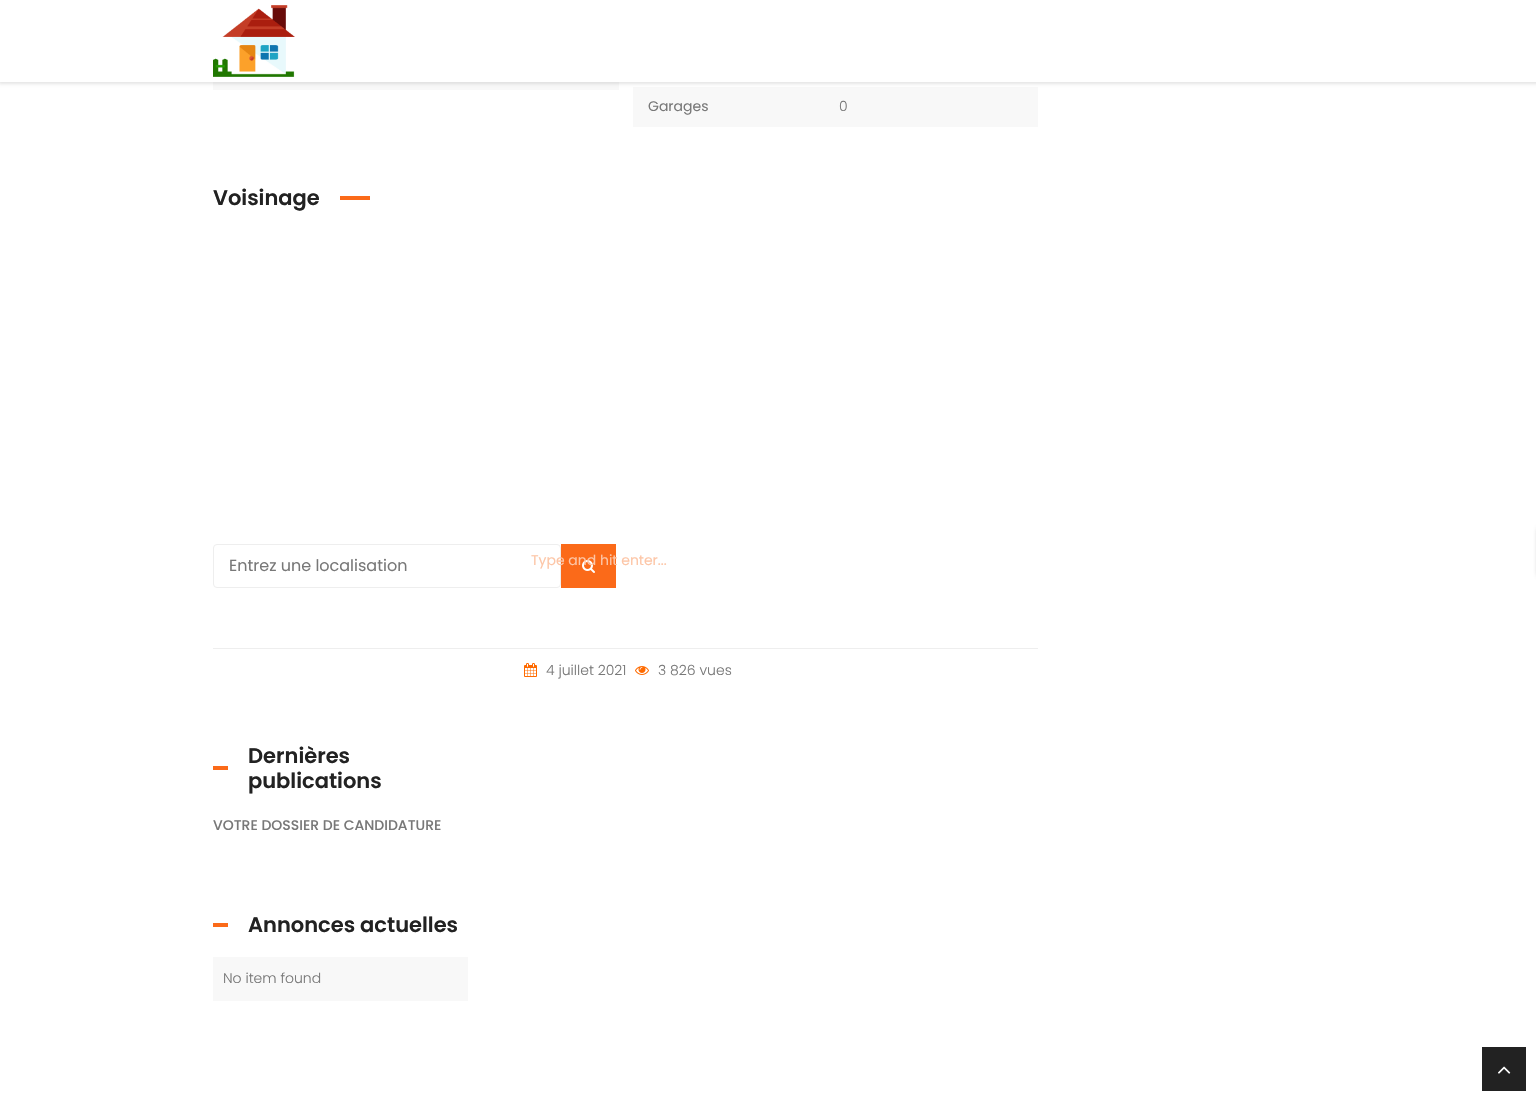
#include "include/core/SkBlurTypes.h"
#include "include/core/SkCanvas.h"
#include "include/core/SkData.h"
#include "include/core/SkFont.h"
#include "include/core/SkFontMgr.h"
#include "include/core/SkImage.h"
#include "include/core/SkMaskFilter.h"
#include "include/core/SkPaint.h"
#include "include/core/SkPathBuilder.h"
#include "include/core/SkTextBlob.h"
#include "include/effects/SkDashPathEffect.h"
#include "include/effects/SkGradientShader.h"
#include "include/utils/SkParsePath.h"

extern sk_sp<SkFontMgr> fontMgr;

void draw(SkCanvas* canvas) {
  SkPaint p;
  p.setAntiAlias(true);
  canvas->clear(SK_ColorWHITE);
  p.setColor(SkColorSetRGB(248, 248, 248));
  canvas->drawRect(SkRect::MakeLTRB(213, 82, 619, 90), p);
  canvas->drawRect(SkRect::MakeLTRB(633, 87, 1038, 127), p);
  p.setColor(SkColorSetARGB(26, 0, 0, 0));
  p.setMaskFilter(SkMaskFilter::MakeBlur(kNormal_SkBlurStyle, 1.5f));
  canvas->drawRect(SkRect::MakeLTRB(-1, -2, 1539, 84), p);
  p.setMaskFilter(nullptr);
  p.setColor(SK_ColorWHITE);
  canvas->drawRect(SkRect::MakeLTRB(0, 0, 1536, 82), p);
  canvas->drawImageRect(SkImages::DeferredFromEncodedData(SkData::MakeFromFileName("images/1.png")), SkRect::MakeLTRB(213, 5, 295, 77), SkSamplingOptions());
  p.setColor(SkColorSetRGB(251, 106, 25));
  canvas->drawRect(SkRect::MakeLTRB(340, 196, 370, 200), p);
  p.setStyle(SkPaint::kStroke_Style);
  p.setStrokeWidth(1);
  p.setColor(SkColorSetRGB(238, 238, 238));
  canvas->drawRoundRect(SkRect::MakeLTRB(213.5f, 544.5f, 560.5f, 587.5f), 3.5f, 3.5f, p);
  p.setStyle(SkPaint::kFill_Style);
  p.setColor(SkColorSetRGB(251, 106, 25));
  canvas->drawRect(SkRect::MakeLTRB(561, 544, 616, 588), p);
  canvas->drawImageRect(SkImages::DeferredFromEncodedData(SkData::MakeFromFileName("images/2.png")), SkRect::MakeLTRB(582, 560, 595, 573), SkSamplingOptions());
  p.setColor(SkColorSetRGB(238, 238, 238));
  canvas->drawRect(SkRect::MakeLTRB(213, 648, 1038, 649), p);
  canvas->drawImageRect(SkImages::DeferredFromEncodedData(SkData::MakeFromFileName("images/3.png")), SkRect::MakeLTRB(524, 663, 537, 677), SkSamplingOptions());
  canvas->drawImageRect(SkImages::DeferredFromEncodedData(SkData::MakeFromFileName("images/4.png")), SkRect::MakeLTRB(635, 666, 649, 675), SkSamplingOptions());
  p.setColor(SkColorSetRGB(251, 106, 25));
  canvas->drawRect(SkRect::MakeLTRB(213, 766, 228, 770), p);
  canvas->drawRect(SkRect::MakeLTRB(213, 923, 228, 927), p);
  p.setColor(SkColorSetRGB(248, 248, 248));
  canvas->drawRect(SkRect::MakeLTRB(213, 957, 468, 1001), p);
  p.setColor(SkColorSetRGB(119, 119, 119));
  p.setMaskFilter(SkMaskFilter::MakeBlur(kNormal_SkBlurStyle, 2.5f));
  canvas->drawRect(SkRect::MakeLTRB(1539, 529, 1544, 575), p);
  p.setMaskFilter(nullptr);
  p.setColor(SkColorSetRGB(34, 34, 34));
  canvas->drawRect(SkRect::MakeLTRB(1482, 1047, 1526, 1091), p);
  canvas->drawImageRect(SkImages::DeferredFromEncodedData(SkData::MakeFromFileName("images/5.png")), SkRect::MakeLTRB(1498, 1066, 1511, 1074), SkSamplingOptions());
  SkFont font1(fontMgr->matchFamilyStyle("Poppins", SkFontStyle::Normal()), 14);
  font1.setSubpixel(true);
  p.setColor(SkColorSetRGB(120, 120, 120));
  canvas->drawString("Garages", 648, 111, font1, p);
  SkFont font2(fontMgr->matchFamilyStyle("Poppins", SkFontStyle(300, SkFontStyle::kNormal_Width, SkFontStyle::kUpright_Slant)), 14);
  font2.setSubpixel(true);
  canvas->drawString("0", 839, 111, font2, p);
  SkFont font3(fontMgr->matchFamilyStyle("Poppins", SkFontStyle(600, SkFontStyle::kNormal_Width, SkFontStyle::kUpright_Slant)), 21);
  font3.setSubpixel(true);
  p.setColor(SkColorSetRGB(34, 34, 34));
  canvas->drawString("Voisinage", 213, 205, font3, p);
  SkFont font4(fontMgr->matchFamilyStyle("Poppins", SkFontStyle::Normal()), 16);
  font4.setSubpixel(true);
  p.setColor(SkColorSetRGB(120, 120, 120));
  canvas->drawString("Entrez une localisation", 229, 571, font4, p);
  canvas->drawString("4 juillet 2021", 546, 675, font2, p);
  canvas->drawString("3 826 vues", 658, 675, font2, p);
  p.setColor(SkColorSetRGB(34, 34, 34));
  canvas->drawString("Dernières", 248, 763, font3, p);
  canvas->drawString("publications", 248, 788, font3, p);
  SkFont font5(fontMgr->matchFamilyStyle("Poppins", SkFontStyle(500, SkFontStyle::kNormal_Width, SkFontStyle::kUpright_Slant)), 14);
  font5.setSubpixel(true);
  p.setColor(SkColorSetRGB(120, 120, 120));
  canvas->drawString("VOTRE DOSSIER DE CANDIDATURE", 213, 830, font5, p);
  p.setColor(SkColorSetRGB(34, 34, 34));
  canvas->drawString("Annonces actuelles", 248, 932, font3, p);
  p.setColor(SkColorSetRGB(120, 120, 120));
  canvas->drawString("No item found", 223, 983, font2, p);
  p.setColor(SkColorSetRGB(253, 198, 167));
  canvas->drawString("Type and hit enter...", 531, 565, font1, p);
}
